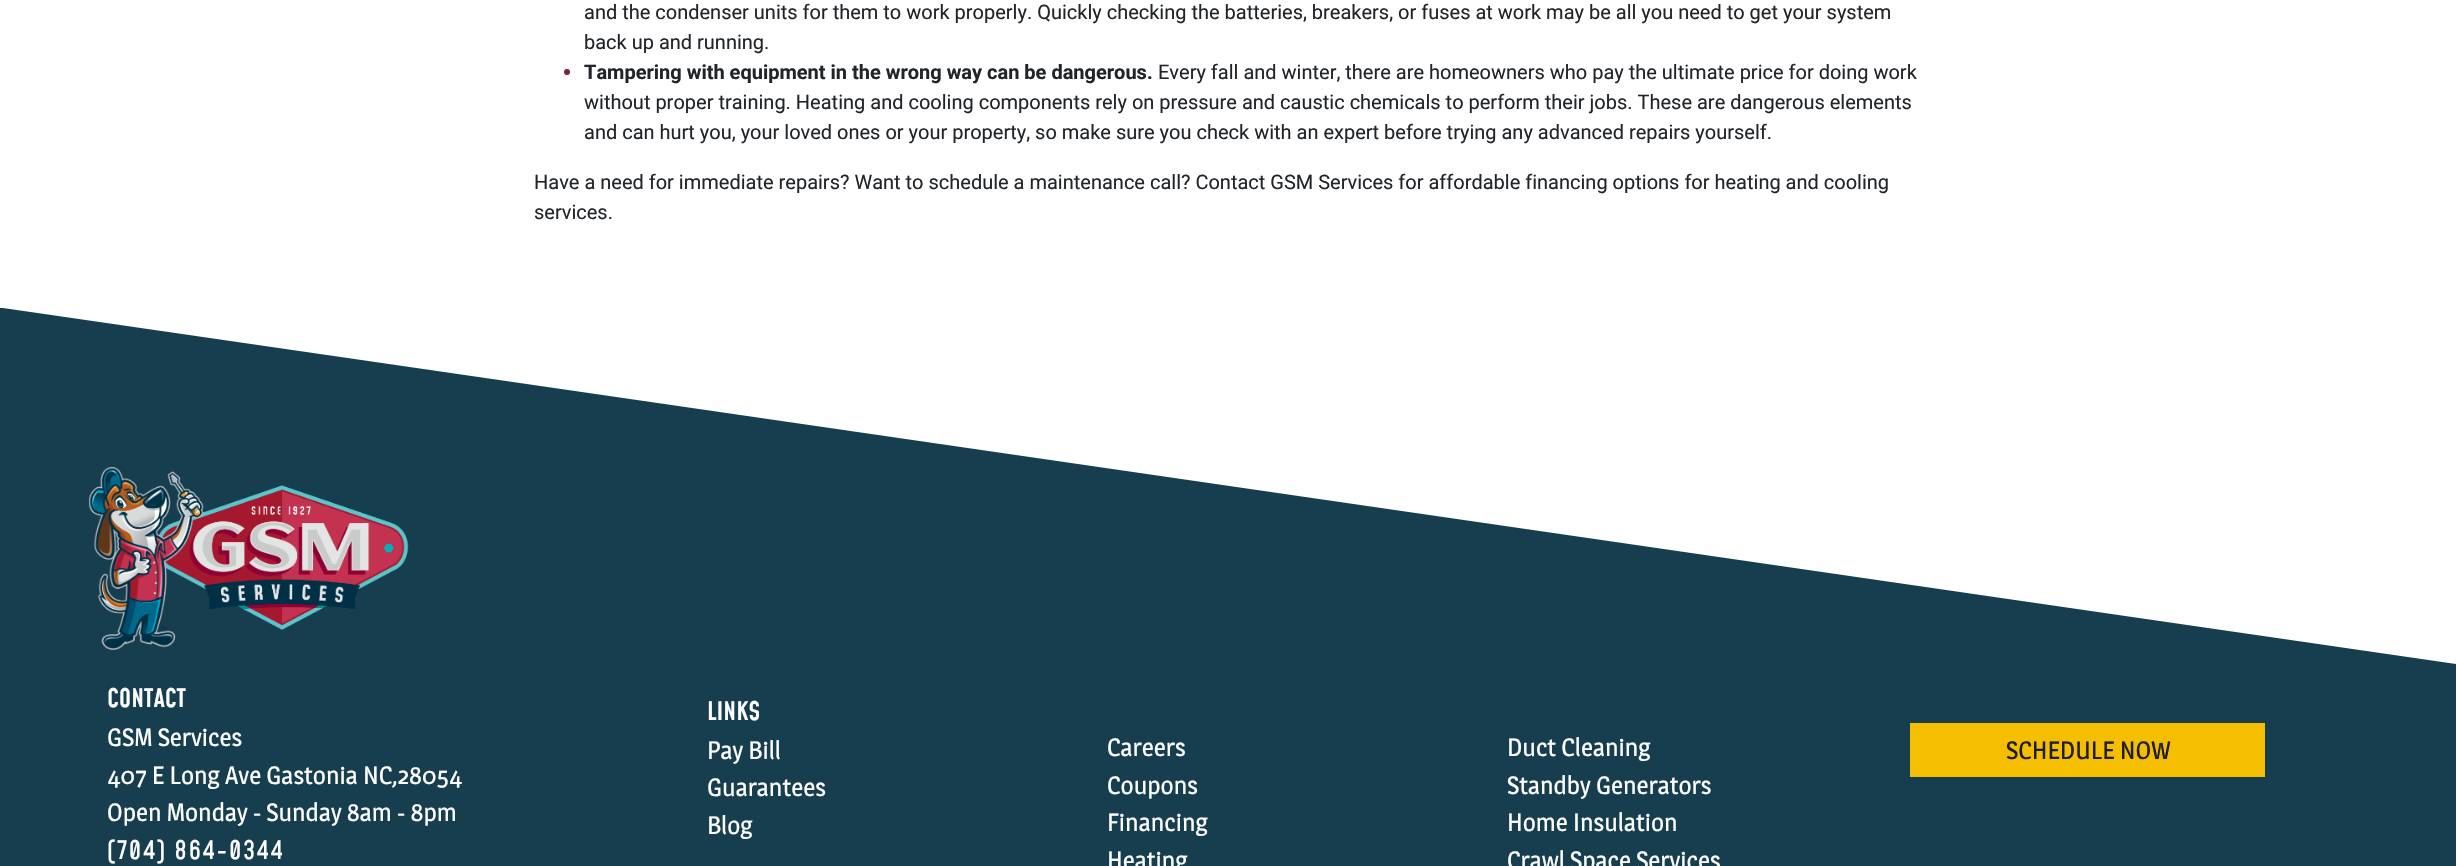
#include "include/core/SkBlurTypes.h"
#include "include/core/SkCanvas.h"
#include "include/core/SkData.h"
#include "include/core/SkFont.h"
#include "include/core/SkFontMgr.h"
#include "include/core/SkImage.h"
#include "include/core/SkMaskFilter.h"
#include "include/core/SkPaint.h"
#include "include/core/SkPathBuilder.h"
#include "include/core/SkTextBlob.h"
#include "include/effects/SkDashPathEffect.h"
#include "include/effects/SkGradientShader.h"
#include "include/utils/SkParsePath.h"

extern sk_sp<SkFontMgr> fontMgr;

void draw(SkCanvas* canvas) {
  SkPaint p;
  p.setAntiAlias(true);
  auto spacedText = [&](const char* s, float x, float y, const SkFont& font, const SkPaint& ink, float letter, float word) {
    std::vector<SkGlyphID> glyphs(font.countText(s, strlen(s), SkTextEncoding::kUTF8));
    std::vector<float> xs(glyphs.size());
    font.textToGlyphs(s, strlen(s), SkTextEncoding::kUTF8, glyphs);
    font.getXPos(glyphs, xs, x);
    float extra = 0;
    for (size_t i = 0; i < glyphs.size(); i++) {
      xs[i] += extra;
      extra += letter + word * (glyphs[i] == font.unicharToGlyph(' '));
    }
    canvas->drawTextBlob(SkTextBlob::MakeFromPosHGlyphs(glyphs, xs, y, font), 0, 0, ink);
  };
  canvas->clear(SK_ColorWHITE);
  p.setColor(SkColorSetRGB(126, 34, 57));
  canvas->drawCircle(567, 72, 3, p);
  p.setColor(SkColorSetRGB(22, 62, 79));
  canvas->drawPath(SkPathBuilder().moveTo(0, 308).lineTo(0, 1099).lineTo(2456, 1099).lineTo(2456, 664).lineTo(3, 308).close().detach(), p);
  canvas->drawImageRect(SkImages::DeferredFromEncodedData(SkData::MakeFromFileName("images/1.png")), SkRect::MakeLTRB(89, 467, 409, 650), SkSamplingOptions());
  p.setColor(SkColorSetRGB(246, 190, 0));
  canvas->drawRect(SkRect::MakeLTRB(1910, 723, 2265, 777), p);
  SkFont font1(fontMgr->matchFamilyStyle("Roboto", SkFontStyle::Normal()), 20);
  font1.setSubpixel(true);
  p.setColor(SkColorSetRGB(33, 37, 41));
  canvas->drawString("and the condenser units for them to work properly. Quickly checking the batteries, breakers, or fuses at work may be all you need to get your system", 584, 19, font1, p);
  canvas->drawString("back up and running.", 584, 49, font1, p);
  SkFont font2(fontMgr->matchFamilyStyle("Roboto", SkFontStyle::Bold()), 20);
  font2.setSubpixel(true);
  canvas->drawString("Tampering with equipment in the wrong way can be dangerous.", 584, 79, font2, p);
  canvas->drawString("Every fall and winter, there are homeowners who pay the ultimate price for doing work", 1158, 79, font1, p);
  canvas->drawString("without proper training. Heating and cooling components rely on pressure and caustic chemicals to perform their jobs. These are dangerous elements", 584, 109, font1, p);
  canvas->drawString("and can hurt you, your loved ones or your property, so make sure you check with an expert before trying any advanced repairs yourself.", 584, 139, font1, p);
  canvas->drawString("Have a need for immediate repairs? Want to schedule a maintenance call? Contact GSM Services for affordable financing options for heating and cooling", 534, 189, font1, p);
  canvas->drawString("services.", 534, 219, font1, p);
  SkFont font3(fontMgr->matchFamilyStyle("Mohave", SkFontStyle(600, SkFontStyle::kNormal_Width, SkFontStyle::kUpright_Slant)), 25);
  font3.setSubpixel(true);
  p.setColor(SK_ColorWHITE);
  canvas->drawString("CONTACT", 107, 707, font3, p);
  SkFont font4(fontMgr->matchFamilyStyle("Magra", SkFontStyle::Normal()), 25);
  font4.setSubpixel(true);
  canvas->drawString("GSM Services", 107, 746, font4, p);
  canvas->drawString("407 E Long Ave Gastonia NC,28054", 107, 784, font4, p);
  canvas->drawString("Open Monday - Sunday 8am - 8pm", 107, 821, font4, p);
  SkFont font5(fontMgr->matchFamilyStyle("Mohave", SkFontStyle(500, SkFontStyle::kNormal_Width, SkFontStyle::kUpright_Slant)), 25);
  font5.setSubpixel(true);
  spacedText("(704) 864-0344", 107, 859, font5, p, 1.9f, 0);
  canvas->drawString("LINKS", 707, 720, font3, p);
  canvas->drawString("Pay Bill", 707, 759, font4, p);
  canvas->drawString("Guarantees", 707, 796, font4, p);
  canvas->drawString("Blog", 707, 834, font4, p);
  canvas->drawString("Careers", 1107, 756, font4, p);
  canvas->drawString("Coupons", 1107, 794, font4, p);
  canvas->drawString("Financing", 1107, 831, font4, p);
  canvas->drawString("Heating", 1107, 869, font4, p);
  canvas->drawString("Duct Cleaning", 1507, 756, font4, p);
  canvas->drawString("Standby Generators", 1507, 794, font4, p);
  canvas->drawString("Home Insulation", 1507, 831, font4, p);
  canvas->drawString("Crawl Space Services", 1507, 869, font4, p);
  p.setColor(SkColorSetRGB(30, 30, 30));
  canvas->drawString("SCHEDULE NOW", 2006, 759, font4, p);
}
